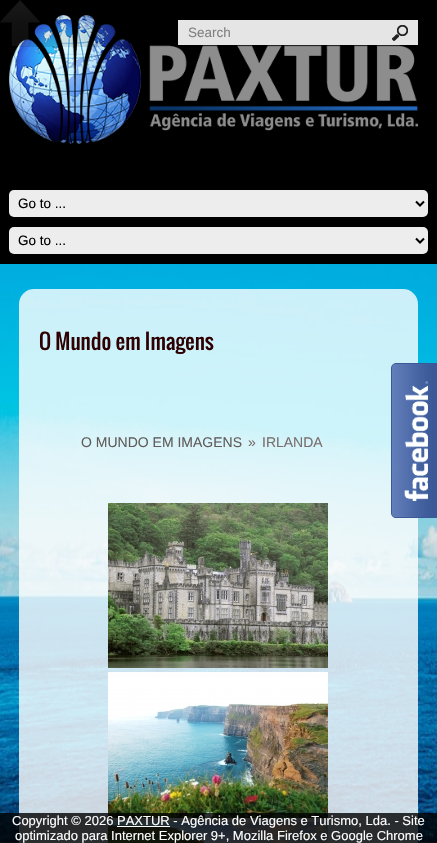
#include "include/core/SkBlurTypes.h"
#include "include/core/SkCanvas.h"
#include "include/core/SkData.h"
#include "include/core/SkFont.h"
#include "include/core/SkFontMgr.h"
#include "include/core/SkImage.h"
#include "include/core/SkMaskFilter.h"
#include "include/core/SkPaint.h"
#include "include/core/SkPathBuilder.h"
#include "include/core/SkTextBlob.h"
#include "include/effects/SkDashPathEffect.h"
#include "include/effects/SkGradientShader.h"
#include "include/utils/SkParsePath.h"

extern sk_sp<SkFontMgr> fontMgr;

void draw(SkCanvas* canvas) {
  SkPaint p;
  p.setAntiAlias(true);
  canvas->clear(SK_ColorWHITE);
  canvas->drawImageRect(SkImages::DeferredFromEncodedData(SkData::MakeFromFileName("images/1.png")), SkRect::MakeLTRB(0, 842, 437, 843), SkSamplingOptions());
  p.setColor(SK_ColorBLACK);
  canvas->drawRect(SkRect::MakeLTRB(0, 0, 437, 264), p);
  canvas->drawImageRect(SkImages::DeferredFromEncodedData(SkData::MakeFromFileName("images/3.png")), SkRect::MakeLTRB(9, 15, 418, 144), SkSamplingOptions());
  p.setColor(SK_ColorWHITE);
  canvas->drawRect(SkRect::MakeLTRB(178, 20, 418, 45), p);
  canvas->drawImageRect(SkImages::DeferredFromEncodedData(SkData::MakeFromFileName("images/4.png")), SkRect::MakeLTRB(392, 25, 408, 41), SkSamplingOptions());
  p.setColor(SkColorSetARGB(26, 0, 0, 0));
  canvas->drawRect(SkRect::MakeLTRB(17, 15, 418, 47), p);
  canvas->drawImageRect(SkImages::DeferredFromEncodedData(SkData::MakeFromFileName("images/2.png")), SkRect::MakeLTRB(0, 0, 40, 47), SkSamplingOptions());
  p.setColor(SkColorSetRGB(237, 237, 237));
  canvas->drawRoundRect(SkRect::MakeLTRB(9, 190, 428, 217), 5, 5, p);
  p.setStyle(SkPaint::kStroke_Style);
  p.setStrokeWidth(2);
  p.setColor(SK_ColorBLACK);
  canvas->drawPath(SkPathBuilder().moveTo(416, 201.5f).lineTo(420, 205.5f).lineTo(424, 201.5f).detach(), p);
  p.setStyle(SkPaint::kFill_Style);
  p.setColor(SkColorSetRGB(237, 237, 237));
  canvas->drawRoundRect(SkRect::MakeLTRB(9, 227, 428, 254), 5, 5, p);
  p.setStyle(SkPaint::kStroke_Style);
  p.setColor(SK_ColorBLACK);
  canvas->drawPath(SkPathBuilder().moveTo(416, 238.5f).lineTo(420, 242.5f).lineTo(424, 238.5f).detach(), p);
  canvas->drawImageRect(SkImages::DeferredFromEncodedData(SkData::MakeFromFileName("images/9.png")), SkRect::MakeLTRB(0, 264, 437, 843), SkSamplingOptions());
  p.setStyle(SkPaint::kFill_Style);
  p.setColor(SkColorSetARGB(204, 255, 255, 255));
  canvas->drawRoundRect(SkRect::MakeLTRB(19, 289, 418, 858), 15, 15, p);
  canvas->drawImageRect(SkImages::DeferredFromEncodedData(SkData::MakeFromFileName("images/5.png")), SkRect::MakeLTRB(108, 503, 328, 668), SkSamplingOptions());
  canvas->drawImageRect(SkImages::DeferredFromEncodedData(SkData::MakeFromFileName("images/6.png")), SkRect::MakeLTRB(108, 672, 328, 818), SkSamplingOptions());
  canvas->drawImageRect(SkImages::DeferredFromEncodedData(SkData::MakeFromFileName("images/7.png")), SkRect::MakeLTRB(108, 822, 328, 843), SkSamplingOptions());
  canvas->drawImageRect(SkImages::DeferredFromEncodedData(SkData::MakeFromFileName("images/8.png")), SkRect::MakeLTRB(391, 363, 437, 518), SkSamplingOptions());
  p.setColor(SkColorSetARGB(204, 0, 0, 0));
  canvas->drawRect(SkRect::MakeLTRB(0, 813, 437, 843), p);
  p.setColor(SK_ColorWHITE);
  canvas->drawRect(SkRect::MakeLTRB(117, 826, 170, 827), p);
  SkFont font1(fontMgr->matchFamilyStyle("Liberation Sans", SkFontStyle::Normal()), 13.5f);
  font1.setSubpixel(true);
  p.setColor(SkColorSetRGB(129, 129, 129));
  canvas->drawString("Search", 188, 37, font1, p);
  p.setColor(SK_ColorBLACK);
  canvas->drawString("Go to ...", 18, 208, font1, p);
  canvas->drawString("Go to ...", 18, 245, font1, p);
  SkFont font2(fontMgr->matchFamilyStyle("Oswald", SkFontStyle::Normal()), 21);
  font2.setSubpixel(true);
  p.setColor(SkColorSetRGB(46, 0, 2));
  canvas->drawString("O Mundo em Imagens", 39, 350, font2, p);
  SkFont font3(fontMgr->matchFamilyStyle("Liberation Sans", SkFontStyle::Normal()), 14);
  font3.setSubpixel(true);
  p.setColor(SkColorSetRGB(97, 92, 91));
  canvas->drawString("O MUNDO EM IMAGENS", 81, 447, font3, p);
  p.setColor(SkColorSetRGB(122, 110, 110));
  canvas->drawString("»", 248, 447, font3, p);
  canvas->drawString("IRLANDA", 262, 447, font3, p);
  SkFont font4(fontMgr->matchFamilyStyle("Liberation Sans", SkFontStyle::Normal()), 13);
  font4.setSubpixel(true);
  p.setColor(SK_ColorWHITE);
  canvas->drawString("Copyright © 2026 PAXTUR - Agência de Viagens e Turismo, Lda. - Site", 12, 825, font4, p);
  canvas->drawString("optimizado para Internet Explorer 9+, Mozilla Firefox e Google Chrome", 15, 840, font4, p);
}
